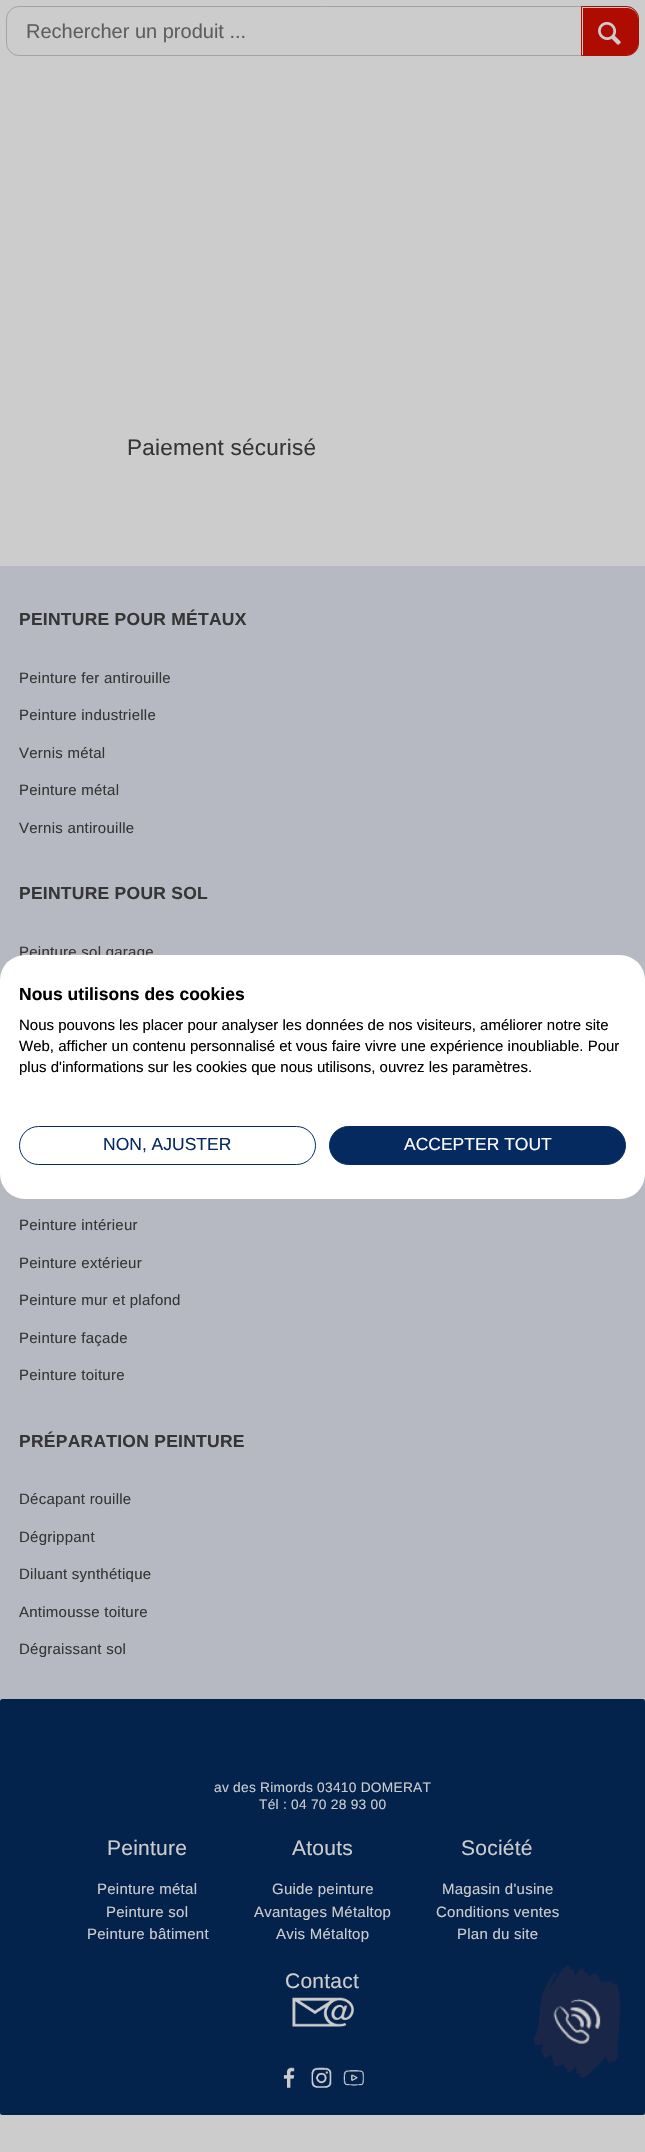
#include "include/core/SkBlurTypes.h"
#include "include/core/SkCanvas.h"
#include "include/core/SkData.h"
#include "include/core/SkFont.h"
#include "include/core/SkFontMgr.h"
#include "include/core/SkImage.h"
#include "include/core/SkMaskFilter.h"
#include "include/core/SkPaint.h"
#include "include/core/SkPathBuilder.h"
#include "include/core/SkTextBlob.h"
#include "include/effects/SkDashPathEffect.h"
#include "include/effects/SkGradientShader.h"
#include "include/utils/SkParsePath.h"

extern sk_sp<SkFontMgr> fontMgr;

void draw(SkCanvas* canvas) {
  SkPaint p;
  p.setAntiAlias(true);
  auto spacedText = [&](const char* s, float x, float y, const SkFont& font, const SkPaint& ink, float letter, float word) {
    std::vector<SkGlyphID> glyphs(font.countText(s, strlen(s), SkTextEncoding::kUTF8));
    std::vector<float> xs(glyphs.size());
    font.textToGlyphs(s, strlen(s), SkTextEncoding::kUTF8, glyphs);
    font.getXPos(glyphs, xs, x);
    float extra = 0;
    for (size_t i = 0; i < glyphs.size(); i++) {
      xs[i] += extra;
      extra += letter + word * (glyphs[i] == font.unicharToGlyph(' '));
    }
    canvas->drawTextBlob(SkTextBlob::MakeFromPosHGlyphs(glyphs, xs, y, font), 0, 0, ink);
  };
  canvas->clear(SkColorSetRGB(204, 204, 204));
  p.setColor(SkColorSetRGB(183, 185, 194));
  canvas->drawRoundRect(SkRect::MakeLTRB(0, -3, 645, 2115), 2.5f, 2.5f, p);
  p.setColor(SkColorSetRGB(204, 204, 204));
  canvas->drawRect(SkRect::MakeLTRB(0, 0, 645, 566), p);
  p.setStyle(SkPaint::kStroke_Style);
  p.setStrokeWidth(1);
  p.setColor(SkColorSetRGB(163, 163, 163));
  canvas->drawRoundRect(SkRect::MakeLTRB(6.5f, 6.5f, 638.5f, 55.5f), 12.5f, 12.5f, p);
  p.setStyle(SkPaint::kFill_Style);
  p.setColor(SkColorSetRGB(174, 12, 0));
  canvas->drawPath(SkPathBuilder().moveTo(583, 8).lineTo(627, 8).cubicTo(633, 8, 638, 13, 638, 19).lineTo(638, 44).cubicTo(638, 50, 633, 55, 627, 55).lineTo(583, 55).close().detach(), p);
  p.setStyle(SkPaint::kStroke_Style);
  canvas->drawPath(SkPathBuilder().moveTo(581.5f, 6.5f).lineTo(626, 6.5f).cubicTo(633, 6.5f, 638.5f, 12, 638.5f, 19).lineTo(638.5f, 43).cubicTo(638.5f, 50, 633, 55.5f, 626, 55.5f).lineTo(581.5f, 55.5f).close().detach(), p);
  canvas->drawImageRect(SkImages::DeferredFromEncodedData(SkData::MakeFromFileName("images/1.png")), SkRect::MakeLTRB(598, 21, 621, 45), SkSamplingOptions());
  p.setStyle(SkPaint::kFill_Style);
  p.setColor(SkColorSetRGB(3, 34, 76));
  canvas->drawRoundRect(SkRect::MakeLTRB(0, 1699, 645, 2115), 2.5f, 2.5f, p);
  canvas->drawImageRect(SkImages::DeferredFromEncodedData(SkData::MakeFromFileName("images/2.png")), SkRect::MakeLTRB(292, 1997, 354, 2027), SkSamplingOptions());
  canvas->drawImageRect(SkImages::DeferredFromEncodedData(SkData::MakeFromFileName("images/3.png")), SkRect::MakeLTRB(283, 2067, 295, 2088), SkSamplingOptions());
  canvas->drawImageRect(SkImages::DeferredFromEncodedData(SkData::MakeFromFileName("images/4.png")), SkRect::MakeLTRB(311, 2067, 332, 2088), SkSamplingOptions());
  canvas->drawImageRect(SkImages::DeferredFromEncodedData(SkData::MakeFromFileName("images/5.png")), SkRect::MakeLTRB(343, 2070, 364, 2086), SkSamplingOptions());
  canvas->drawImageRect(SkImages::DeferredFromEncodedData(SkData::MakeFromFileName("images/6.png")), SkRect::MakeLTRB(533, 1965, 620, 2078), SkSamplingOptions());
  SkFont font1(fontMgr->matchFamilyStyle("Liberation Sans", SkFontStyle::Normal()), 20);
  font1.setSubpixel(true);
  p.setColor(SkColorSetRGB(94, 94, 94));
  canvas->drawString("Rechercher un produit ...", 26, 38, font1, p);
  SkFont font2(fontMgr->matchFamilyStyle("Liberation Sans", SkFontStyle::Normal()), 22.5f);
  font2.setSubpixel(true);
  p.setColor(SkColorSetRGB(54, 54, 54));
  spacedText("Paiement sécurisé", 127, 455, font2, p, 0.25f, 0);
  SkFont font3(fontMgr->matchFamilyStyle("Liberation Sans", SkFontStyle::Bold()), 17.5f);
  font3.setSubpixel(true);
  spacedText("PEINTURE POUR MÉTAUX", 19, 625, font3, p, 0.25f, 0);
  SkFont font4(fontMgr->matchFamilyStyle("Liberation Sans", SkFontStyle::Normal()), 15);
  font4.setSubpixel(true);
  spacedText("Peinture fer antirouille", 19, 683, font4, p, 0.25f, 0);
  spacedText("Peinture industrielle", 19, 720, font4, p, 0.25f, 0);
  spacedText("Vernis métal", 19, 758, font4, p, 0.25f, 0);
  spacedText("Peinture métal", 19, 795, font4, p, 0.25f, 0);
  spacedText("Vernis antirouille", 19, 833, font4, p, 0.25f, 0);
  spacedText("PEINTURE POUR SOL", 19, 899, font3, p, 0.25f, 0);
  spacedText("Peinture sol garage", 19, 957, font4, p, 0.25f, 0);
  spacedText("Peinture intérieur", 19, 1230, font4, p, 0.25f, 0);
  spacedText("Peinture extérieur", 19, 1268, font4, p, 0.25f, 0);
  spacedText("Peinture mur et plafond", 19, 1305, font4, p, 0.25f, 0);
  spacedText("Peinture façade", 19, 1343, font4, p, 0.25f, 0);
  spacedText("Peinture toiture", 19, 1380, font4, p, 0.25f, 0);
  spacedText("PRÉPARATION PEINTURE", 19, 1447, font3, p, 0.25f, 0);
  spacedText("Décapant rouille", 19, 1504, font4, p, 0.25f, 0);
  spacedText("Dégrippant", 19, 1542, font4, p, 0.25f, 0);
  spacedText("Diluant synthétique", 19, 1579, font4, p, 0.25f, 0);
  spacedText("Antimousse toiture", 19, 1617, font4, p, 0.25f, 0);
  spacedText("Dégraissant sol", 19, 1654, font4, p, 0.25f, 0);
  SkFont font5(fontMgr->matchFamilyStyle("Liberation Sans", SkFontStyle::Normal()), 13.75f);
  font5.setSubpixel(true);
  p.setColor(SkColorSetRGB(204, 204, 204));
  spacedText("av des Rimords 03410 DOMERAT", 214, 1792, font5, p, 0.25f, 0);
  spacedText("Tél : 04 70 28 93 00", 259, 1809, font5, p, 0.25f, 0);
  SkFont font6(fontMgr->matchFamilyStyle("Liberation Sans", SkFontStyle::Normal()), 21);
  font6.setSubpixel(true);
  spacedText("Peinture", 107, 1855, font6, p, 0.25f, 0);
  spacedText("Peinture métal", 97, 1894, font4, p, 0.25f, 0);
  spacedText("Peinture sol", 106, 1917, font4, p, 0.25f, 0);
  spacedText("Peinture bâtiment", 87, 1939, font4, p, 0.25f, 0);
  spacedText("Atouts", 292, 1855, font6, p, 0.25f, 0);
  spacedText("Guide peinture", 272, 1894, font4, p, 0.25f, 0);
  spacedText("Avantages Métaltop", 254, 1917, font4, p, 0.25f, 0);
  spacedText("Avis Métaltop", 276, 1939, font4, p, 0.25f, 0);
  spacedText("Société", 461, 1855, font6, p, 0.25f, 0);
  spacedText("Magasin d'usine", 442, 1894, font4, p, 0.25f, 0);
  spacedText("Conditions ventes", 436, 1917, font4, p, 0.25f, 0);
  spacedText("Plan du site", 457, 1939, font4, p, 0.25f, 0);
  spacedText("Contact", 285, 1988, font6, p, 0.25f, 0);
  p.setColor(SK_ColorWHITE);
  canvas->drawRoundRect(SkRect::MakeLTRB(0, 955, 645, 1199), 25, 25, p);
  p.setColor(SK_ColorBLACK);
  canvas->drawString("Nous utilisons des cookies", 19, 1000, font3, p);
  canvas->drawString("Nous pouvons les placer pour analyser les données de nos visiteurs, améliorer notre site", 19, 1030, font4, p);
  canvas->drawString("Web, afficher un contenu personnalisé et vous faire vivre une expérience inoubliable. Pour", 19, 1051, font4, p);
  canvas->drawString("plus d'informations sur les cookies que nous utilisons, ouvrez les paramètres.", 19, 1072, font4, p);
  p.setStyle(SkPaint::kStroke_Style);
  p.setColor(SkColorSetRGB(5, 42, 96));
  canvas->drawRoundRect(SkRect::MakeLTRB(19.5f, 1126.5f, 315.5f, 1164.5f), 19, 19, p);
  SkFont font7(fontMgr->matchFamilyStyle("Liberation Sans", SkFontStyle::Normal()), 17.5f);
  font7.setSubpixel(true);
  p.setStyle(SkPaint::kFill_Style);
  canvas->drawString("NON, AJUSTER", 103, 1150, font7, p);
  canvas->drawRoundRect(SkRect::MakeLTRB(329.5f, 1126.5f, 625.5f, 1164.5f), 19, 19, p);
  p.setStyle(SkPaint::kStroke_Style);
  canvas->drawRoundRect(SkRect::MakeLTRB(329.5f, 1126.5f, 625.5f, 1164.5f), 19, 19, p);
  p.setStyle(SkPaint::kFill_Style);
  p.setColor(SK_ColorWHITE);
  canvas->drawString("ACCEPTER TOUT", 404, 1150, font7, p);
}
